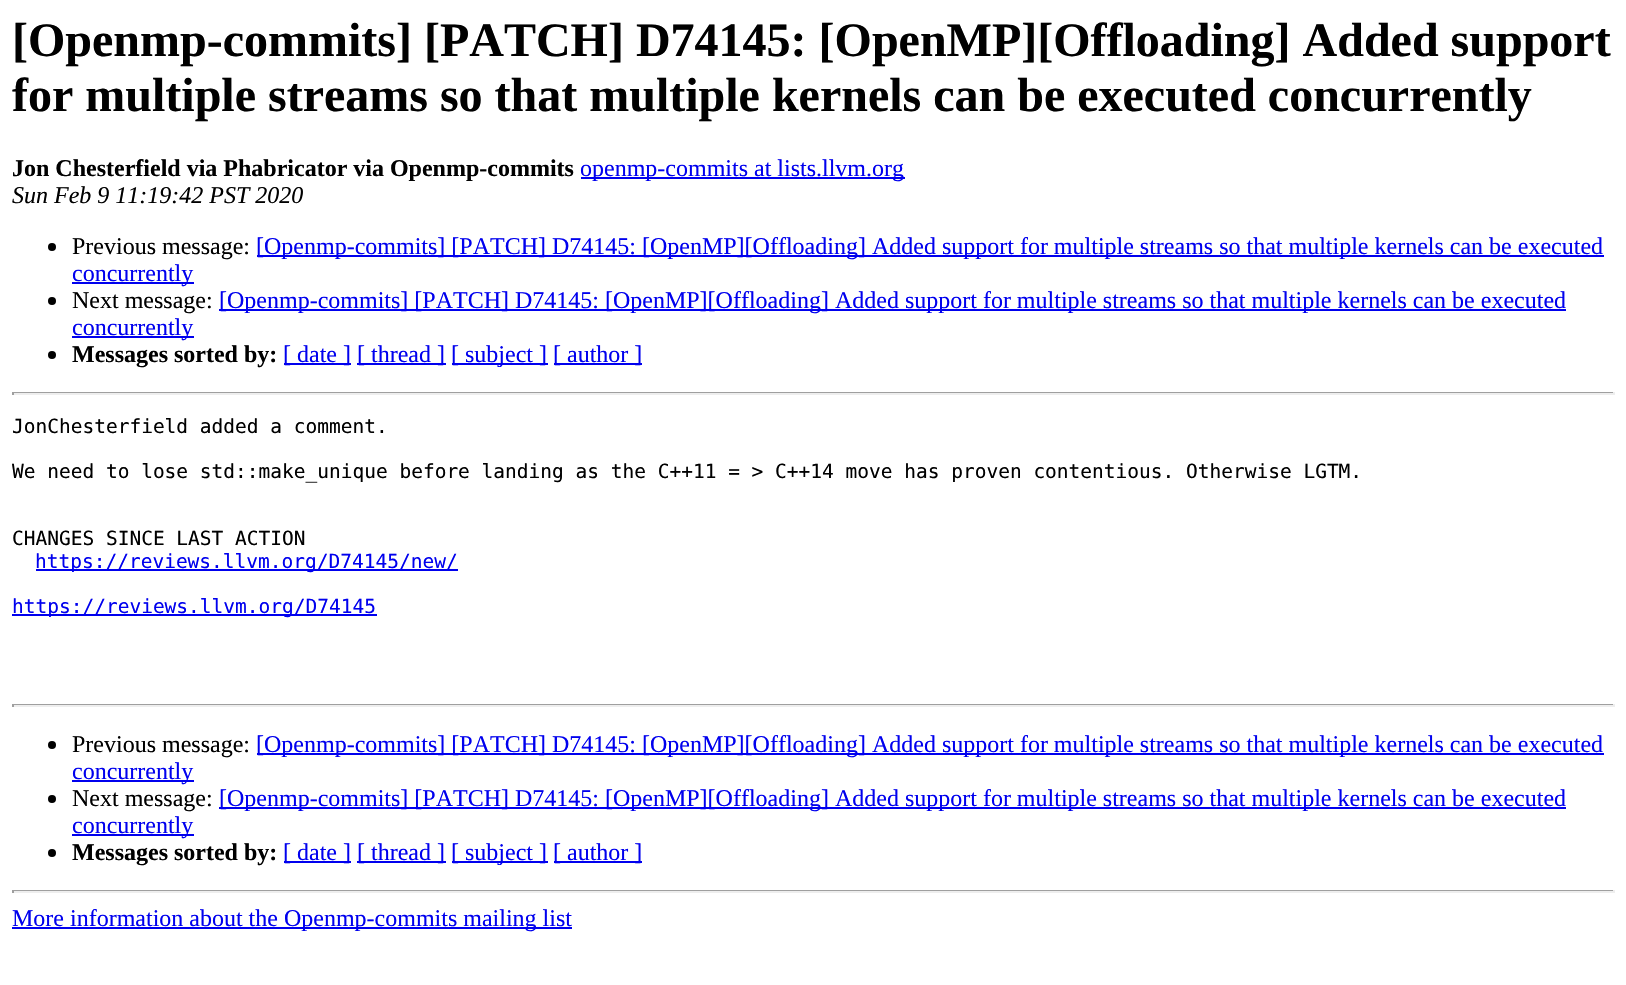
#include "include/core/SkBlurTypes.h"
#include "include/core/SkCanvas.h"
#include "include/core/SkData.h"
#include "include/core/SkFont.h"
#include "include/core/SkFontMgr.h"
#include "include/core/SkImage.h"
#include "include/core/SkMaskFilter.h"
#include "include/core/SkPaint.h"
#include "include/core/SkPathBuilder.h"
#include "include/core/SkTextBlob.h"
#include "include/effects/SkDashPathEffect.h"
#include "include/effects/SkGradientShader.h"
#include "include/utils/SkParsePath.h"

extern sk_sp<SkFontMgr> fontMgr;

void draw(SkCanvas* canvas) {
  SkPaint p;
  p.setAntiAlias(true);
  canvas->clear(SK_ColorWHITE);
  p.setColor(SkColorSetRGB(0, 0, 238));
  canvas->drawRect(SkRect::MakeLTRB(581, 177, 905, 179), p);
  p.setColor(SK_ColorBLACK);
  canvas->drawCircle(52, 247, 4, p);
  p.setColor(SkColorSetRGB(0, 0, 238));
  canvas->drawRect(SkRect::MakeLTRB(257, 255, 1604, 257), p);
  canvas->drawRect(SkRect::MakeLTRB(72, 282, 194, 284), p);
  p.setColor(SK_ColorBLACK);
  canvas->drawCircle(52, 301, 4, p);
  p.setColor(SkColorSetRGB(0, 0, 238));
  canvas->drawRect(SkRect::MakeLTRB(219, 309, 1566, 311), p);
  canvas->drawRect(SkRect::MakeLTRB(72, 336, 194, 338), p);
  p.setColor(SK_ColorBLACK);
  canvas->drawCircle(52, 355, 4, p);
  p.setColor(SkColorSetRGB(0, 0, 238));
  canvas->drawRect(SkRect::MakeLTRB(284, 363, 351, 365), p);
  canvas->drawRect(SkRect::MakeLTRB(357, 363, 446, 365), p);
  canvas->drawRect(SkRect::MakeLTRB(452, 363, 548, 365), p);
  canvas->drawRect(SkRect::MakeLTRB(554, 363, 642, 365), p);
  p.setColor(SkColorSetRGB(159, 159, 159));
  canvas->drawRect(SkRect::MakeLTRB(12, 392, 1614, 393), p);
  p.setColor(SkColorSetRGB(238, 238, 238));
  canvas->drawRect(SkRect::MakeLTRB(1613, 392, 1615, 395), p);
  canvas->drawRect(SkRect::MakeLTRB(12, 393, 1614, 395), p);
  p.setColor(SkColorSetRGB(159, 159, 159));
  canvas->drawRect(SkRect::MakeLTRB(12, 392, 14, 395), p);
  p.setColor(SkColorSetRGB(0, 0, 238));
  canvas->drawRect(SkRect::MakeLTRB(36, 569, 458, 571), p);
  canvas->drawRect(SkRect::MakeLTRB(12, 614, 377, 616), p);
  p.setColor(SkColorSetRGB(159, 159, 159));
  canvas->drawRect(SkRect::MakeLTRB(12, 704, 1614, 705), p);
  p.setColor(SkColorSetRGB(238, 238, 238));
  canvas->drawRect(SkRect::MakeLTRB(1613, 704, 1615, 707), p);
  canvas->drawRect(SkRect::MakeLTRB(12, 705, 1614, 707), p);
  p.setColor(SkColorSetRGB(159, 159, 159));
  canvas->drawRect(SkRect::MakeLTRB(12, 704, 14, 707), p);
  p.setColor(SK_ColorBLACK);
  canvas->drawCircle(52, 745, 4, p);
  p.setColor(SkColorSetRGB(0, 0, 238));
  canvas->drawRect(SkRect::MakeLTRB(257, 753, 1604, 755), p);
  canvas->drawRect(SkRect::MakeLTRB(72, 780, 194, 782), p);
  p.setColor(SK_ColorBLACK);
  canvas->drawCircle(52, 799, 4, p);
  p.setColor(SkColorSetRGB(0, 0, 238));
  canvas->drawRect(SkRect::MakeLTRB(219, 807, 1566, 809), p);
  canvas->drawRect(SkRect::MakeLTRB(72, 834, 194, 836), p);
  p.setColor(SK_ColorBLACK);
  canvas->drawCircle(52, 853, 4, p);
  p.setColor(SkColorSetRGB(0, 0, 238));
  canvas->drawRect(SkRect::MakeLTRB(284, 861, 351, 863), p);
  canvas->drawRect(SkRect::MakeLTRB(357, 861, 446, 863), p);
  canvas->drawRect(SkRect::MakeLTRB(452, 861, 548, 863), p);
  canvas->drawRect(SkRect::MakeLTRB(554, 861, 642, 863), p);
  p.setColor(SkColorSetRGB(159, 159, 159));
  canvas->drawRect(SkRect::MakeLTRB(12, 890, 1614, 891), p);
  p.setColor(SkColorSetRGB(238, 238, 238));
  canvas->drawRect(SkRect::MakeLTRB(1613, 890, 1615, 893), p);
  canvas->drawRect(SkRect::MakeLTRB(12, 891, 1614, 893), p);
  p.setColor(SkColorSetRGB(159, 159, 159));
  canvas->drawRect(SkRect::MakeLTRB(12, 890, 14, 893), p);
  p.setColor(SkColorSetRGB(0, 0, 238));
  canvas->drawRect(SkRect::MakeLTRB(12, 927, 572, 929), p);
  SkFont font1(fontMgr->matchFamilyStyle("Liberation Serif", SkFontStyle::Bold()), 48);
  font1.setSubpixel(true);
  p.setColor(SK_ColorBLACK);
  canvas->drawString("[Openmp-commits] [PATCH] D74145: [OpenMP][Offloading] Added support", 12, 56, font1, p);
  canvas->drawString("for multiple streams so that multiple kernels can be executed concurrently", 12, 111, font1, p);
  SkFont font2(fontMgr->matchFamilyStyle("Liberation Serif", SkFontStyle::Bold()), 24);
  font2.setSubpixel(true);
  canvas->drawString("Jon Chesterfield via Phabricator via Openmp-commits", 12, 176, font2, p);
  SkFont font3(fontMgr->matchFamilyStyle("Liberation Serif", SkFontStyle::Normal()), 24);
  font3.setSubpixel(true);
  p.setColor(SkColorSetRGB(0, 0, 238));
  canvas->drawString("openmp-commits at lists.llvm.org", 580, 176, font3, p);
  SkFont font4(fontMgr->matchFamilyStyle("Liberation Serif", SkFontStyle::Italic()), 24);
  font4.setSubpixel(true);
  p.setColor(SK_ColorBLACK);
  canvas->drawString("Sun Feb 9 11:19:42 PST 2020", 12, 203, font4, p);
  canvas->drawString("Previous message:", 72, 254, font3, p);
  p.setColor(SkColorSetRGB(0, 0, 238));
  canvas->drawString("[Openmp-commits] [PATCH] D74145: [OpenMP][Offloading] Added support for multiple streams so that multiple kernels can be executed", 256, 254, font3, p);
  canvas->drawString("concurrently", 72, 281, font3, p);
  p.setColor(SK_ColorBLACK);
  canvas->drawString("Next message:", 72, 308, font3, p);
  p.setColor(SkColorSetRGB(0, 0, 238));
  canvas->drawString("[Openmp-commits] [PATCH] D74145: [OpenMP][Offloading] Added support for multiple streams so that multiple kernels can be executed", 219, 308, font3, p);
  canvas->drawString("concurrently", 72, 335, font3, p);
  p.setColor(SK_ColorBLACK);
  canvas->drawString("Messages sorted by:", 72, 362, font2, p);
  p.setColor(SkColorSetRGB(0, 0, 238));
  canvas->drawString("[ date ]", 283, 362, font3, p);
  canvas->drawString("[ thread ]", 357, 362, font3, p);
  canvas->drawString("[ subject ]", 451, 362, font3, p);
  canvas->drawString("[ author ]", 553, 362, font3, p);
  SkFont font5(fontMgr->matchFamilyStyle("DejaVu Sans Mono", SkFontStyle::Normal()), 19.5f);
  font5.setSubpixel(true);
  p.setColor(SK_ColorBLACK);
  canvas->drawString("JonChesterfield added a comment.", 12, 433, font5, p);
  canvas->drawString("We need to lose std::make_unique before landing as the C++11 = > C++14 move has proven contentious. Otherwise LGTM.", 12, 478, font5, p);
  canvas->drawString("CHANGES SINCE LAST ACTION", 12, 545, font5, p);
  p.setColor(SkColorSetRGB(0, 0, 238));
  canvas->drawString("https://reviews.llvm.org/D74145/new/", 35, 568, font5, p);
  canvas->drawString("https://reviews.llvm.org/D74145", 12, 613, font5, p);
  p.setColor(SK_ColorBLACK);
  canvas->drawString("Previous message:", 72, 752, font3, p);
  p.setColor(SkColorSetRGB(0, 0, 238));
  canvas->drawString("[Openmp-commits] [PATCH] D74145: [OpenMP][Offloading] Added support for multiple streams so that multiple kernels can be executed", 256, 752, font3, p);
  canvas->drawString("concurrently", 72, 779, font3, p);
  p.setColor(SK_ColorBLACK);
  canvas->drawString("Next message:", 72, 806, font3, p);
  p.setColor(SkColorSetRGB(0, 0, 238));
  canvas->drawString("[Openmp-commits] [PATCH] D74145: [OpenMP][Offloading] Added support for multiple streams so that multiple kernels can be executed", 219, 806, font3, p);
  canvas->drawString("concurrently", 72, 833, font3, p);
  p.setColor(SK_ColorBLACK);
  canvas->drawString("Messages sorted by:", 72, 860, font2, p);
  p.setColor(SkColorSetRGB(0, 0, 238));
  canvas->drawString("[ date ]", 283, 860, font3, p);
  canvas->drawString("[ thread ]", 357, 860, font3, p);
  canvas->drawString("[ subject ]", 451, 860, font3, p);
  canvas->drawString("[ author ]", 553, 860, font3, p);
  canvas->drawString("More information about the Openmp-commits mailing list", 12, 926, font3, p);
}
